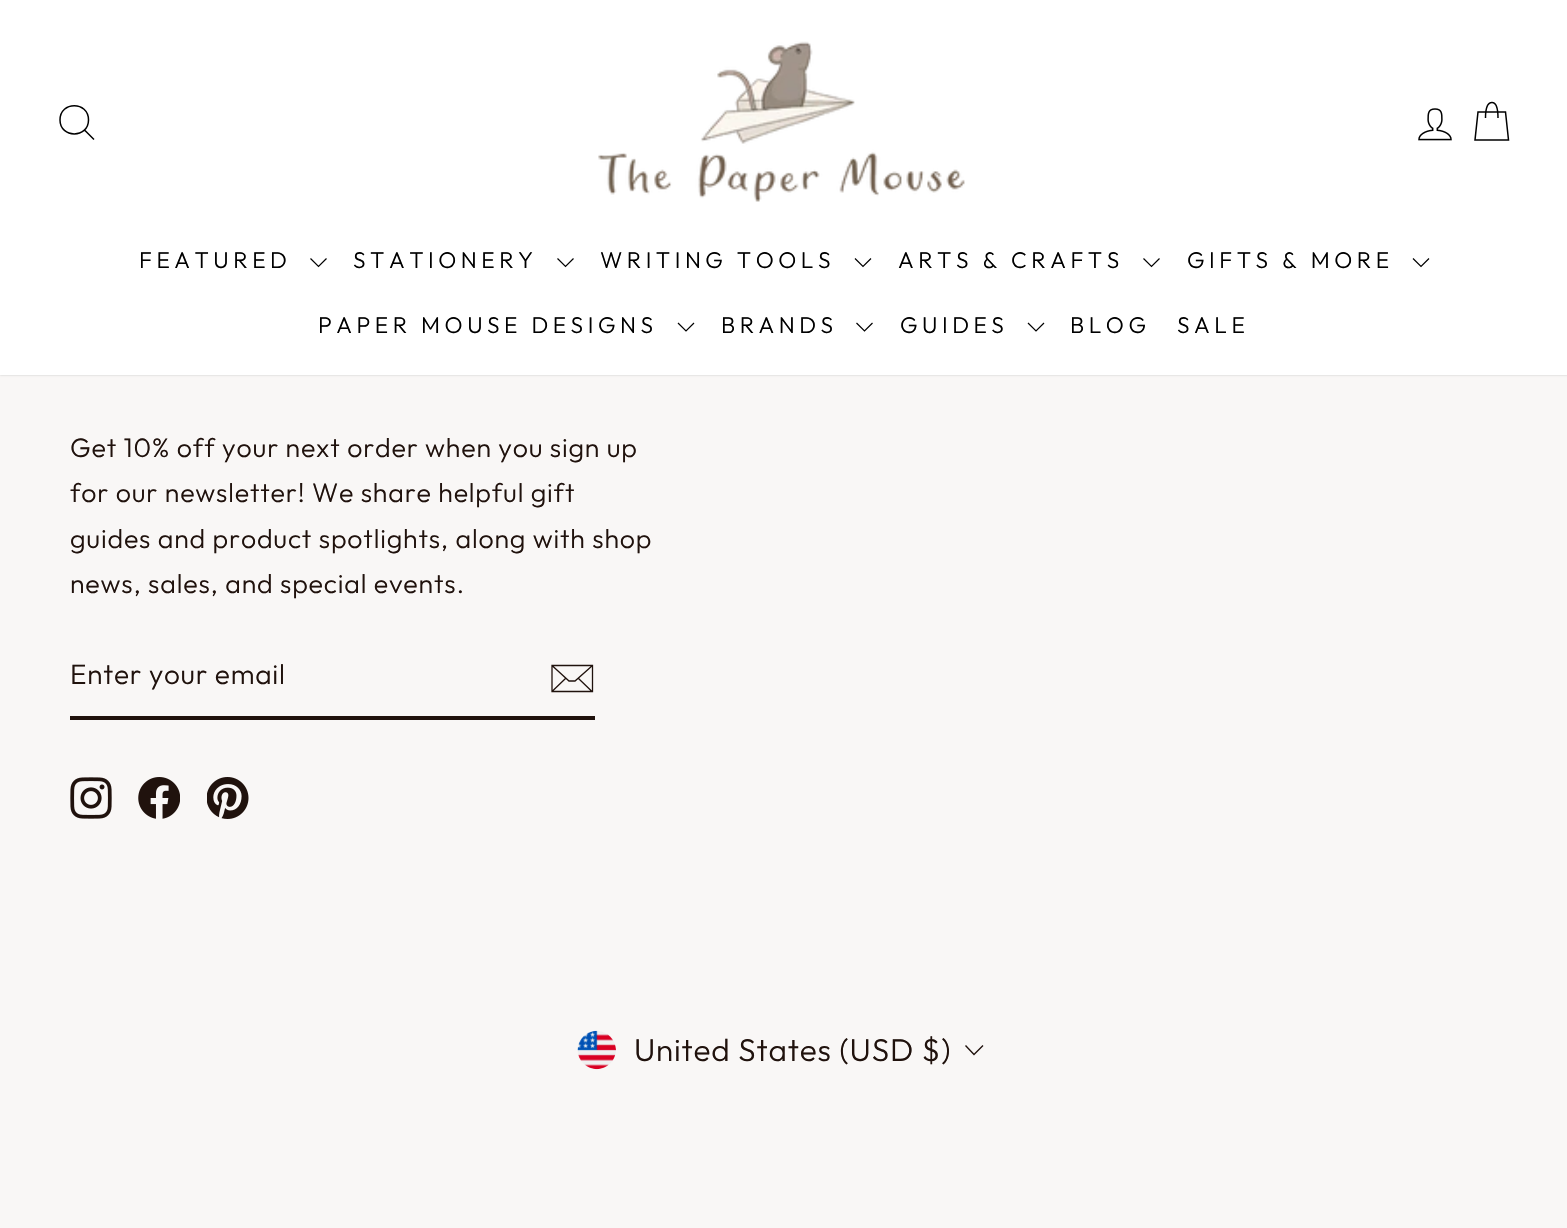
#include "include/core/SkBlurTypes.h"
#include "include/core/SkCanvas.h"
#include "include/core/SkData.h"
#include "include/core/SkFont.h"
#include "include/core/SkFontMgr.h"
#include "include/core/SkImage.h"
#include "include/core/SkMaskFilter.h"
#include "include/core/SkPaint.h"
#include "include/core/SkPathBuilder.h"
#include "include/core/SkTextBlob.h"
#include "include/effects/SkDashPathEffect.h"
#include "include/effects/SkGradientShader.h"
#include "include/utils/SkParsePath.h"

extern sk_sp<SkFontMgr> fontMgr;

void draw(SkCanvas* canvas) {
  SkPaint p;
  p.setAntiAlias(true);
  auto spacedText = [&](const char* s, float x, float y, const SkFont& font, const SkPaint& ink, float letter, float word) {
    std::vector<SkGlyphID> glyphs(font.countText(s, strlen(s), SkTextEncoding::kUTF8));
    std::vector<float> xs(glyphs.size());
    font.textToGlyphs(s, strlen(s), SkTextEncoding::kUTF8, glyphs);
    font.getXPos(glyphs, xs, x);
    float extra = 0;
    for (size_t i = 0; i < glyphs.size(); i++) {
      xs[i] += extra;
      extra += letter + word * (glyphs[i] == font.unicharToGlyph(' '));
    }
    canvas->drawTextBlob(SkTextBlob::MakeFromPosHGlyphs(glyphs, xs, y, font), 0, 0, ink);
  };
  canvas->clear(SkColorSetRGB(249, 247, 246));
  p.setColor(SkColorSetARGB(51, 0, 0, 0));
  p.setMaskFilter(SkMaskFilter::MakeBlur(kNormal_SkBlurStyle, 1));
  canvas->drawRect(SkRect::MakeLTRB(0, 0, 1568, 375), p);
  p.setMaskFilter(nullptr);
  p.setColor(SK_ColorWHITE);
  canvas->drawRect(SkRect::MakeLTRB(0, 0, 1567, 375), p);
  p.setStyle(SkPaint::kStroke_Style);
  p.setStrokeWidth(1.5f);
  p.setColor(SK_ColorBLACK);
  canvas->drawPath(SkPathBuilder().moveTo(88.5f, 120).cubicTo(88.5f, 138.5f, 60, 138.5f, 60, 120).cubicTo(60, 101, 88.5f, 101, 88.5f, 120).close().moveTo(94, 139.5f).lineTo(84.5f, 130).detach(), p);
  canvas->drawImageRect(SkImages::DeferredFromEncodedData(SkData::MakeFromFileName("images/1.png")), SkRect::MakeLTRB(598, 41, 965, 202), SkSamplingOptions());
  canvas->drawImageRect(SkImages::DeferredFromEncodedData(SkData::MakeFromFileName("images/2.png")), SkRect::MakeLTRB(1418, 108, 1452, 141), SkSamplingOptions());
  canvas->drawPath(SkPathBuilder().moveTo(1485.5f, 118).cubicTo(1485.5f, 106, 1488.5f, 102.5f, 1492, 102.5f).cubicTo(1495, 102.5f, 1498, 106, 1498, 118).moveTo(1478, 112).lineTo(1505.5f, 112).lineTo(1508.5f, 140).lineTo(1475, 140).close().detach(), p);
  p.setStrokeWidth(1.2f);
  canvas->drawPath(SkPathBuilder().moveTo(310.5f, 258.5f).lineTo(318.5f, 266.5f).lineTo(326.5f, 258.5f).detach(), p);
  canvas->drawPath(SkPathBuilder().moveTo(557.5f, 258.5f).lineTo(565.5f, 266.5f).lineTo(573.5f, 258.5f).detach(), p);
  canvas->drawPath(SkPathBuilder().moveTo(855, 258.5f).lineTo(863, 266.5f).lineTo(871, 258.5f).detach(), p);
  canvas->drawPath(SkPathBuilder().moveTo(1143.5f, 258.5f).lineTo(1151.5f, 266.5f).lineTo(1159.5f, 258.5f).detach(), p);
  canvas->drawPath(SkPathBuilder().moveTo(1413, 258.5f).lineTo(1421, 266.5f).lineTo(1429, 258.5f).detach(), p);
  canvas->drawPath(SkPathBuilder().moveTo(678, 323).lineTo(686, 331).lineTo(694, 323).detach(), p);
  canvas->drawPath(SkPathBuilder().moveTo(856.5f, 323).lineTo(864.5f, 331).lineTo(872.5f, 323).detach(), p);
  canvas->drawPath(SkPathBuilder().moveTo(1028, 323).lineTo(1036, 331).lineTo(1044, 323).detach(), p);
  p.setStyle(SkPaint::kFill_Style);
  p.setColor(SkColorSetRGB(32, 18, 13));
  canvas->drawRect(SkRect::MakeLTRB(70, 716, 595, 720), p);
  p.setStyle(SkPaint::kStroke_Style);
  p.setStrokeWidth(1.3f);
  canvas->drawPath(SkPathBuilder().moveTo(592.5f, 691.5f).lineTo(552, 691.5f).lineTo(552, 665.5f).lineTo(592.5f, 665.5f).close().moveTo(552, 665.5f).lineTo(569, 681).lineTo(575, 681).lineTo(592.5f, 665.5f).moveTo(565.5f, 678.5f).lineTo(552.5f, 691).moveTo(592, 691.5f).lineTo(578.5f, 678.5f).detach(), p);
  canvas->drawImageRect(SkImages::DeferredFromEncodedData(SkData::MakeFromFileName("images/3.png")), SkRect::MakeLTRB(70, 777, 112, 819), SkSamplingOptions());
  canvas->drawImageRect(SkImages::DeferredFromEncodedData(SkData::MakeFromFileName("images/4.png")), SkRect::MakeLTRB(138, 777, 180, 819), SkSamplingOptions());
  canvas->drawImageRect(SkImages::DeferredFromEncodedData(SkData::MakeFromFileName("images/5.png")), SkRect::MakeLTRB(207, 777, 249, 819), SkSamplingOptions());
  canvas->drawImageRect(SkImages::DeferredFromEncodedData(SkData::MakeFromFileName("images/6.png")), SkRect::MakeLTRB(577, 1030, 616, 1070), SkSamplingOptions());
  p.setStrokeWidth(1.4f);
  canvas->drawPath(SkPathBuilder().moveTo(965.5f, 1045.5f).lineTo(974, 1054.5f).lineTo(983, 1045.5f).detach(), p);
  SkFont font1(fontMgr->matchFamilyStyle("Outfit", SkFontStyle(300, SkFontStyle::kNormal_Width, SkFontStyle::kUpright_Slant)), 22.75f);
  font1.setSubpixel(true);
  p.setStyle(SkPaint::kFill_Style);
  p.setColor(SK_ColorBLACK);
  spacedText("FEATURED", 139, 268, font1, p, 4.5f, 0);
  spacedText("STATIONERY", 353, 268, font1, p, 4.5f, 0);
  spacedText("WRITING TOOLS", 600, 268, font1, p, 4.5f, 0);
  spacedText("ARTS & CRAFTS", 898, 268, font1, p, 4.5f, 0);
  spacedText("GIFTS & MORE", 1187, 268, font1, p, 4.5f, 0);
  spacedText("PAPER MOUSE DESIGNS", 318, 333, font1, p, 4.5f, 0);
  spacedText("BRANDS", 721, 333, font1, p, 4.5f, 0);
  spacedText("GUIDES", 900, 333, font1, p, 4.5f, 0);
  spacedText("BLOG", 1070, 333, font1, p, 4.5f, 0);
  spacedText("SALE", 1177, 333, font1, p, 4.5f, 0);
  SkFont font2(fontMgr->matchFamilyStyle("Outfit", SkFontStyle(300, SkFontStyle::kNormal_Width, SkFontStyle::kUpright_Slant)), 26.75f);
  font2.setSubpixel(true);
  p.setColor(SkColorSetRGB(32, 18, 13));
  spacedText("Get 10% off your next order when you sign up", 70, 457, font2, p, 0.8f, 0);
  spacedText("for our newsletter! We share helpful gift", 70, 502, font2, p, 0.8f, 0);
  spacedText("guides and product spotlights, along with shop", 70, 548, font2, p, 0.8f, 0);
  spacedText("news, sales, and special events.", 70, 593, font2, p, 0.8f, 0);
  SkFont font3(fontMgr->matchFamilyStyle("Outfit", SkFontStyle(300, SkFontStyle::kNormal_Width, SkFontStyle::kUpright_Slant)), 28);
  font3.setSubpixel(true);
  spacedText("Enter your email", 70, 684, font3, p, 0.75f, 0);
  SkFont font4(fontMgr->matchFamilyStyle("Outfit", SkFontStyle(300, SkFontStyle::kNormal_Width, SkFontStyle::kUpright_Slant)), 31.5f);
  font4.setSubpixel(true);
  spacedText("United States (USD $)", 634, 1061, font4, p, 0.8f, 0);
}
